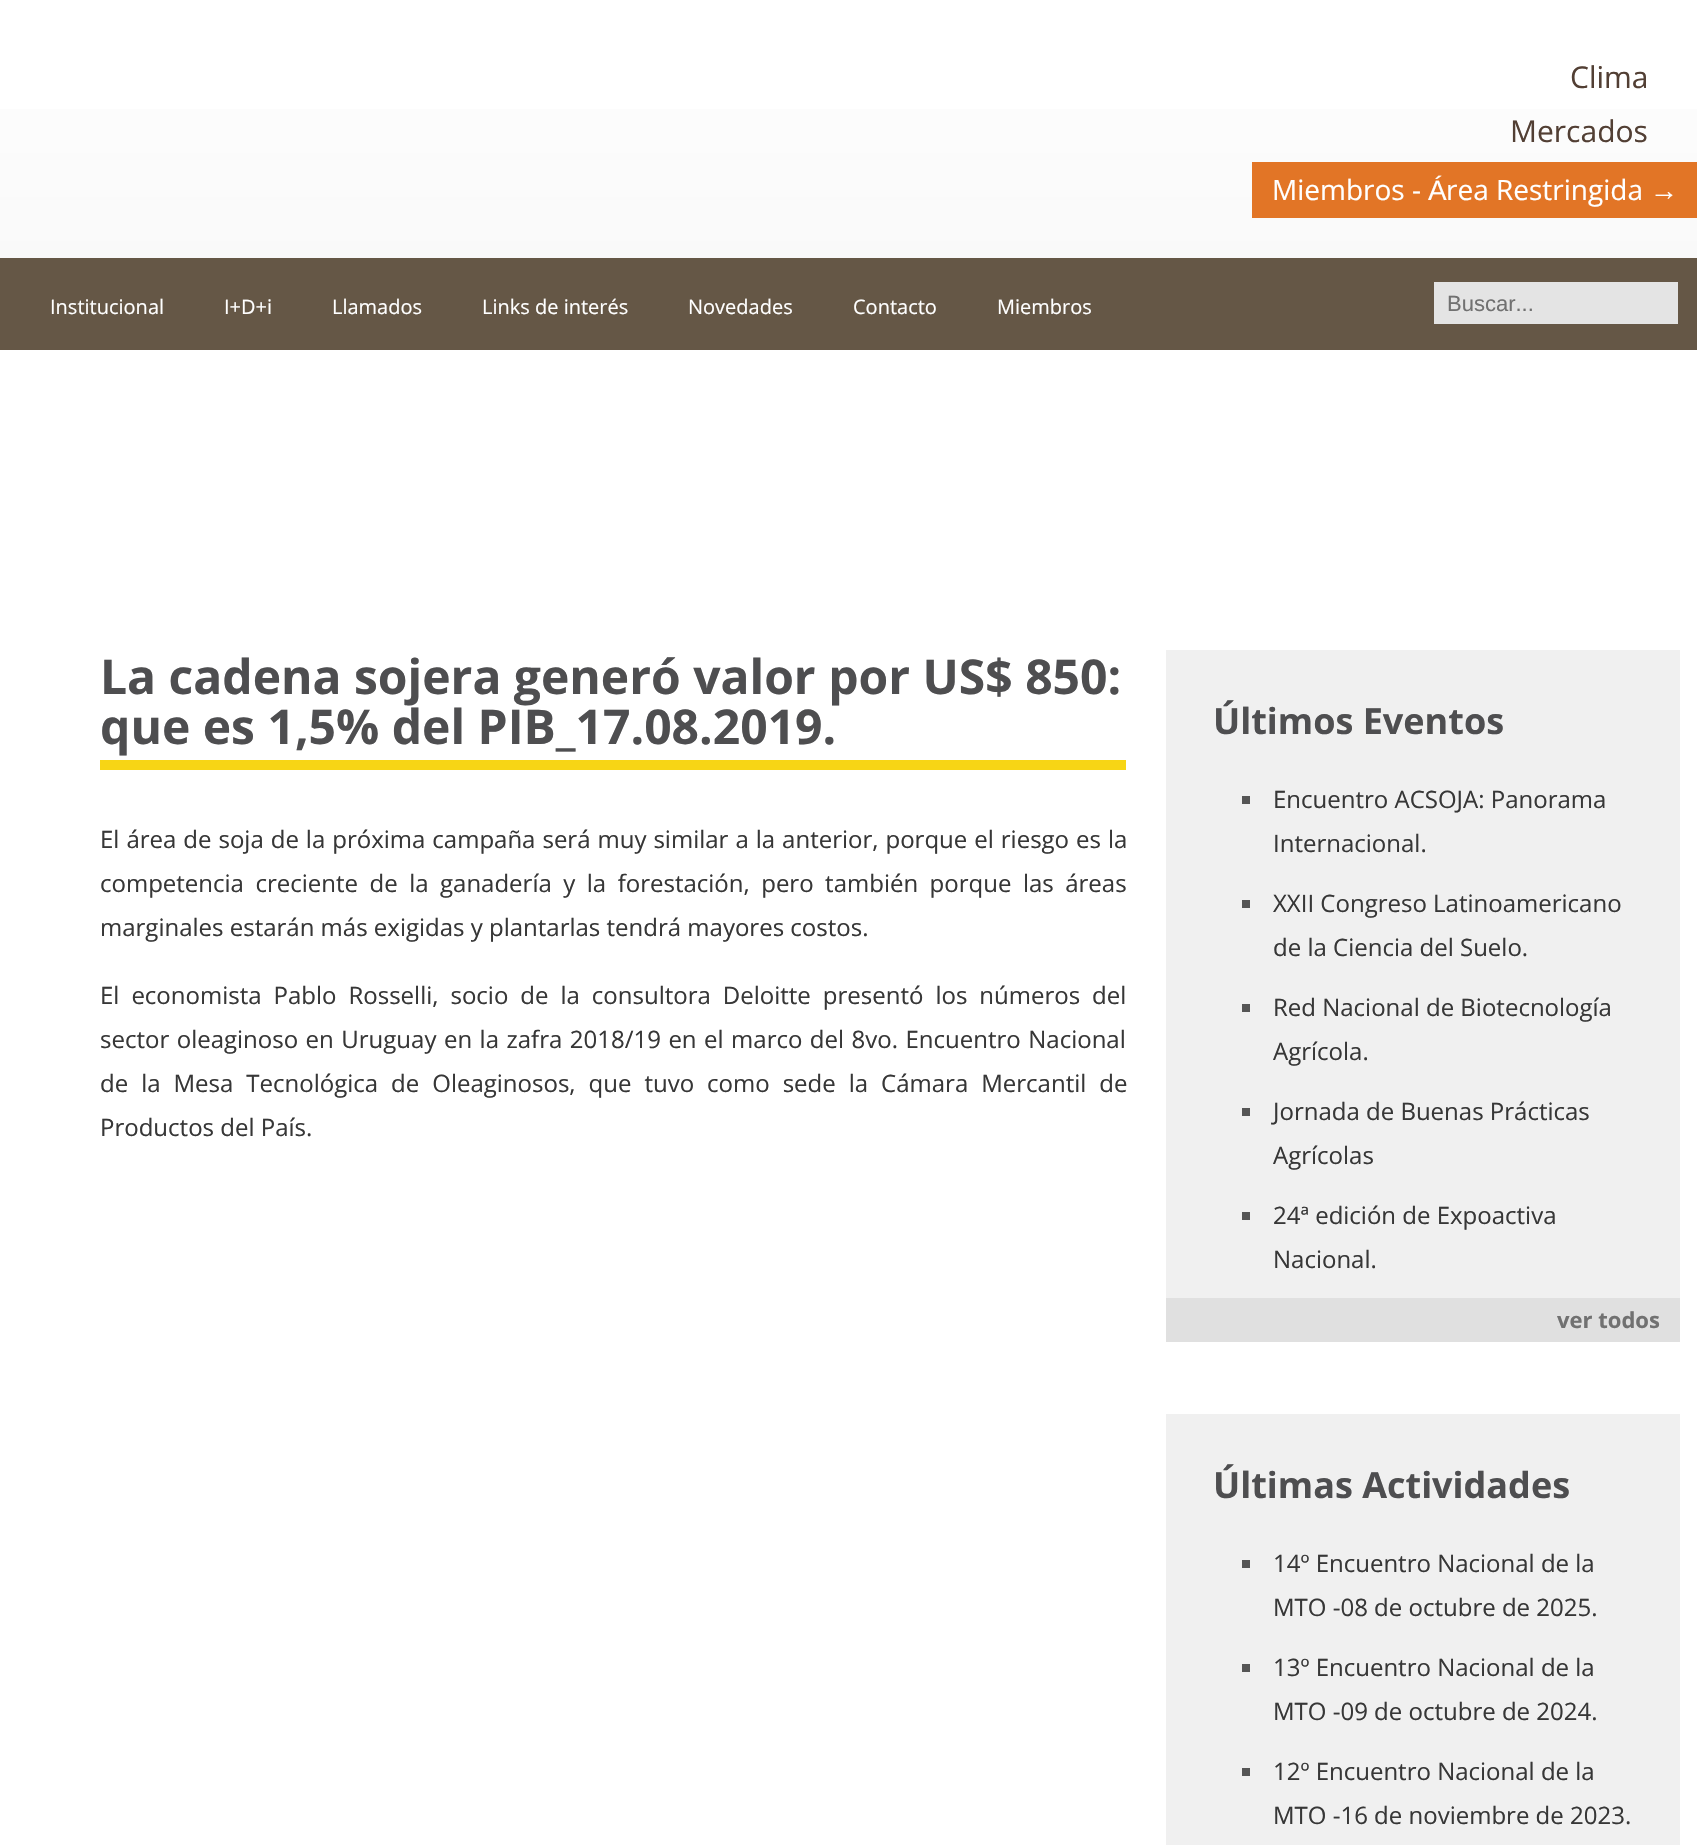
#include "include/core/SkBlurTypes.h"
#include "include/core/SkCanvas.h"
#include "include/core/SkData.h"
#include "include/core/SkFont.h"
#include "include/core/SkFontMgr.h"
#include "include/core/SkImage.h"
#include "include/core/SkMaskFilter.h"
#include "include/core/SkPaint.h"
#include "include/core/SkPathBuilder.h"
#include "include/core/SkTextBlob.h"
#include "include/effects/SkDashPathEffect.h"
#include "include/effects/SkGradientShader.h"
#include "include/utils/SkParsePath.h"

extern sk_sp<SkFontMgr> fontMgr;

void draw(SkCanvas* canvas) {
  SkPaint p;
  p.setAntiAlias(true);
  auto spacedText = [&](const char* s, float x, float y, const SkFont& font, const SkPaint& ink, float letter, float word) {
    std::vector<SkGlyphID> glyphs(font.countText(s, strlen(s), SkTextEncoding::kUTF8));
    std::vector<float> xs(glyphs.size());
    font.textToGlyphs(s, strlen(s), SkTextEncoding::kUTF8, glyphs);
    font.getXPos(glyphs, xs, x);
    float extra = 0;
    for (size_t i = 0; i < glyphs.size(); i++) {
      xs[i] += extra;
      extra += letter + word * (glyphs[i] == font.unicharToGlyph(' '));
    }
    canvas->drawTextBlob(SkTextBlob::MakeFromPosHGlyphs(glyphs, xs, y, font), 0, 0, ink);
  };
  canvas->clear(SK_ColorWHITE);
  {
    const SkColor colors[] = {SkColorSetRGB(247, 247, 247), SK_ColorWHITE};
    const float stops[] = {0, 1};
    const SkPoint ends[] = {{849, 350}, {849, 0}};
    p.setShader(SkGradientShader::MakeLinear(ends, colors, stops, 2, SkTileMode::kClamp));
    p.setAlpha(255);
  }
  canvas->drawRect(SkRect::MakeLTRB(0, 109, 1697, 258), p);
  p.setShader(nullptr);
  p.setColor(SkColorSetRGB(226, 117, 38));
  canvas->drawRect(SkRect::MakeLTRB(1252, 162, 1697, 218), p);
  p.setColor(SkColorSetRGB(101, 87, 70));
  canvas->drawRect(SkRect::MakeLTRB(0, 258, 1697, 350), p);
  p.setColor(SkColorSetRGB(228, 228, 228));
  canvas->drawRect(SkRect::MakeLTRB(1434, 282, 1678, 324), p);
  p.setColor(SkColorSetRGB(247, 213, 21));
  canvas->drawRect(SkRect::MakeLTRB(100, 760, 1126, 770), p);
  p.setColor(SkColorSetRGB(240, 240, 240));
  canvas->drawRect(SkRect::MakeLTRB(1166, 650, 1680, 1298), p);
  p.setColor(SkColorSetRGB(85, 85, 85));
  canvas->drawRect(SkRect::MakeLTRB(1242, 796, 1250, 804), p);
  canvas->drawRect(SkRect::MakeLTRB(1242, 900, 1250, 908), p);
  canvas->drawRect(SkRect::MakeLTRB(1242, 1004, 1250, 1012), p);
  canvas->drawRect(SkRect::MakeLTRB(1242, 1108, 1250, 1116), p);
  canvas->drawRect(SkRect::MakeLTRB(1242, 1212, 1250, 1220), p);
  p.setColor(SkColorSetRGB(224, 224, 224));
  canvas->drawRect(SkRect::MakeLTRB(1166, 1298, 1680, 1342), p);
  p.setColor(SkColorSetRGB(240, 240, 240));
  canvas->drawRect(SkRect::MakeLTRB(1166, 1414, 1680, 1845), p);
  p.setColor(SkColorSetRGB(85, 85, 85));
  canvas->drawRect(SkRect::MakeLTRB(1242, 1560, 1250, 1568), p);
  canvas->drawRect(SkRect::MakeLTRB(1242, 1664, 1250, 1672), p);
  canvas->drawRect(SkRect::MakeLTRB(1242, 1768, 1250, 1776), p);
  SkFont font1(fontMgr->matchFamilyStyle("Open Sans", SkFontStyle::Normal()), 30);
  font1.setSubpixel(true);
  p.setColor(SkColorSetRGB(82, 63, 52));
  canvas->drawString("Clima", 1570, 88, font1, p);
  canvas->drawString("Mercados", 1510, 142, font1, p);
  SkFont font2(fontMgr->matchFamilyStyle("Open Sans", SkFontStyle::Normal()), 28);
  font2.setSubpixel(true);
  p.setColor(SK_ColorWHITE);
  canvas->drawString("Miembros -", 1272, 200, font2, p);
  SkFont font3(fontMgr->matchFamilyStyle("Liberation Sans", SkFontStyle::Normal()), 28);
  font3.setSubpixel(true);
  canvas->drawString("Á", 1428, 200, font3, p);
  canvas->drawString("rea Restringida", 1446, 200, font2, p);
  canvas->drawString("→", 1650, 200, font3, p);
  SkFont font4(fontMgr->matchFamilyStyle("Open Sans", SkFontStyle::Normal()), 20);
  font4.setSubpixel(true);
  canvas->drawString("Institucional", 50, 314, font4, p);
  canvas->drawString("I+D+i", 224, 314, font4, p);
  canvas->drawString("Llamados", 332, 314, font4, p);
  canvas->drawString("Links de interés", 482, 314, font4, p);
  canvas->drawString("Novedades", 688, 314, font4, p);
  canvas->drawString("Contacto", 853, 314, font4, p);
  canvas->drawString("Miembros", 997, 314, font4, p);
  SkFont font5(fontMgr->matchFamilyStyle("Liberation Sans", SkFontStyle::Normal()), 22);
  font5.setSubpixel(true);
  p.setColor(SkColorSetRGB(113, 113, 113));
  canvas->drawString("Buscar...", 1447, 311, font5, p);
  SkFont font6(fontMgr->matchFamilyStyle("Open Sans", SkFontStyle::Bold()), 48);
  font6.setSubpixel(true);
  p.setColor(SkColorSetRGB(78, 78, 80));
  canvas->drawString("La cadena sojera generó valor por US$ 850:", 100, 694, font6, p);
  canvas->drawString("que es 1,5% del PIB_17.08.2019.", 100, 744, font6, p);
  SkFont font7(fontMgr->matchFamilyStyle("Open Sans", SkFontStyle::Normal()), 24);
  font7.setSubpixel(true);
  p.setColor(SkColorSetRGB(55, 55, 55));
  spacedText("El área de soja de la próxima campaña será muy similar a la anterior, porque el riesgo es la", 100, 848, font7, p, 0, 0.75f);
  spacedText("competencia creciente de la ganadería y la forestación, pero también porque las áreas", 100, 892, font7, p, 0, 5.25f);
  canvas->drawString("marginales estarán más exigidas y plantarlas tendrá mayores costos.", 100, 936, font7, p);
  spacedText("El economista Pablo Rosselli, socio de la consultora Deloitte presentó los números del", 100, 1004, font7, p, 0, 5.75f);
  spacedText("sector oleaginoso en Uruguay en la zafra 2018/19 en el marco del 8vo. Encuentro Nacional", 100, 1048, font7, p, 0, 1.25f);
  spacedText("de la Mesa Tecnológica de Oleaginosos, que tuvo como sede la Cámara Mercantil de", 100, 1092, font7, p, 0, 6.75f);
  canvas->drawString("Productos del País.", 100, 1136, font7, p);
  SkFont font8(fontMgr->matchFamilyStyle("Open Sans", SkFontStyle::Bold()), 36);
  font8.setSubpixel(true);
  p.setColor(SkColorSetRGB(78, 78, 80));
  canvas->drawString("Últimos Eventos", 1213, 734, font8, p);
  p.setColor(SkColorSetRGB(55, 55, 55));
  canvas->drawString("Encuentro ACSOJA: Panorama", 1273, 808, font7, p);
  canvas->drawString("Internacional.", 1273, 852, font7, p);
  canvas->drawString("XXII Congreso Latinoamericano", 1273, 912, font7, p);
  canvas->drawString("de la Ciencia del Suelo.", 1273, 956, font7, p);
  canvas->drawString("Red Nacional de Biotecnología", 1273, 1016, font7, p);
  canvas->drawString("Agrícola.", 1273, 1060, font7, p);
  canvas->drawString("Jornada de Buenas Prácticas", 1273, 1120, font7, p);
  canvas->drawString("Agrícolas", 1273, 1164, font7, p);
  canvas->drawString("24ª edición de Expoactiva", 1273, 1224, font7, p);
  canvas->drawString("Nacional.", 1273, 1268, font7, p);
  SkFont font9(fontMgr->matchFamilyStyle("Open Sans", SkFontStyle::Bold()), 22);
  font9.setSubpixel(true);
  p.setColor(SkColorSetRGB(113, 113, 113));
  canvas->drawString("ver todos", 1557, 1328, font9, p);
  p.setColor(SkColorSetRGB(78, 78, 80));
  canvas->drawString("Últimas Actividades", 1213, 1498, font8, p);
  p.setColor(SkColorSetRGB(55, 55, 55));
  canvas->drawString("14º Encuentro Nacional de la", 1273, 1572, font7, p);
  canvas->drawString("MTO -08 de octubre de 2025.", 1273, 1616, font7, p);
  canvas->drawString("13º Encuentro Nacional de la", 1273, 1676, font7, p);
  canvas->drawString("MTO -09 de octubre de 2024.", 1273, 1720, font7, p);
  canvas->drawString("12º Encuentro Nacional de la", 1273, 1780, font7, p);
  canvas->drawString("MTO -16 de noviembre de 2023.", 1273, 1824, font7, p);
}
